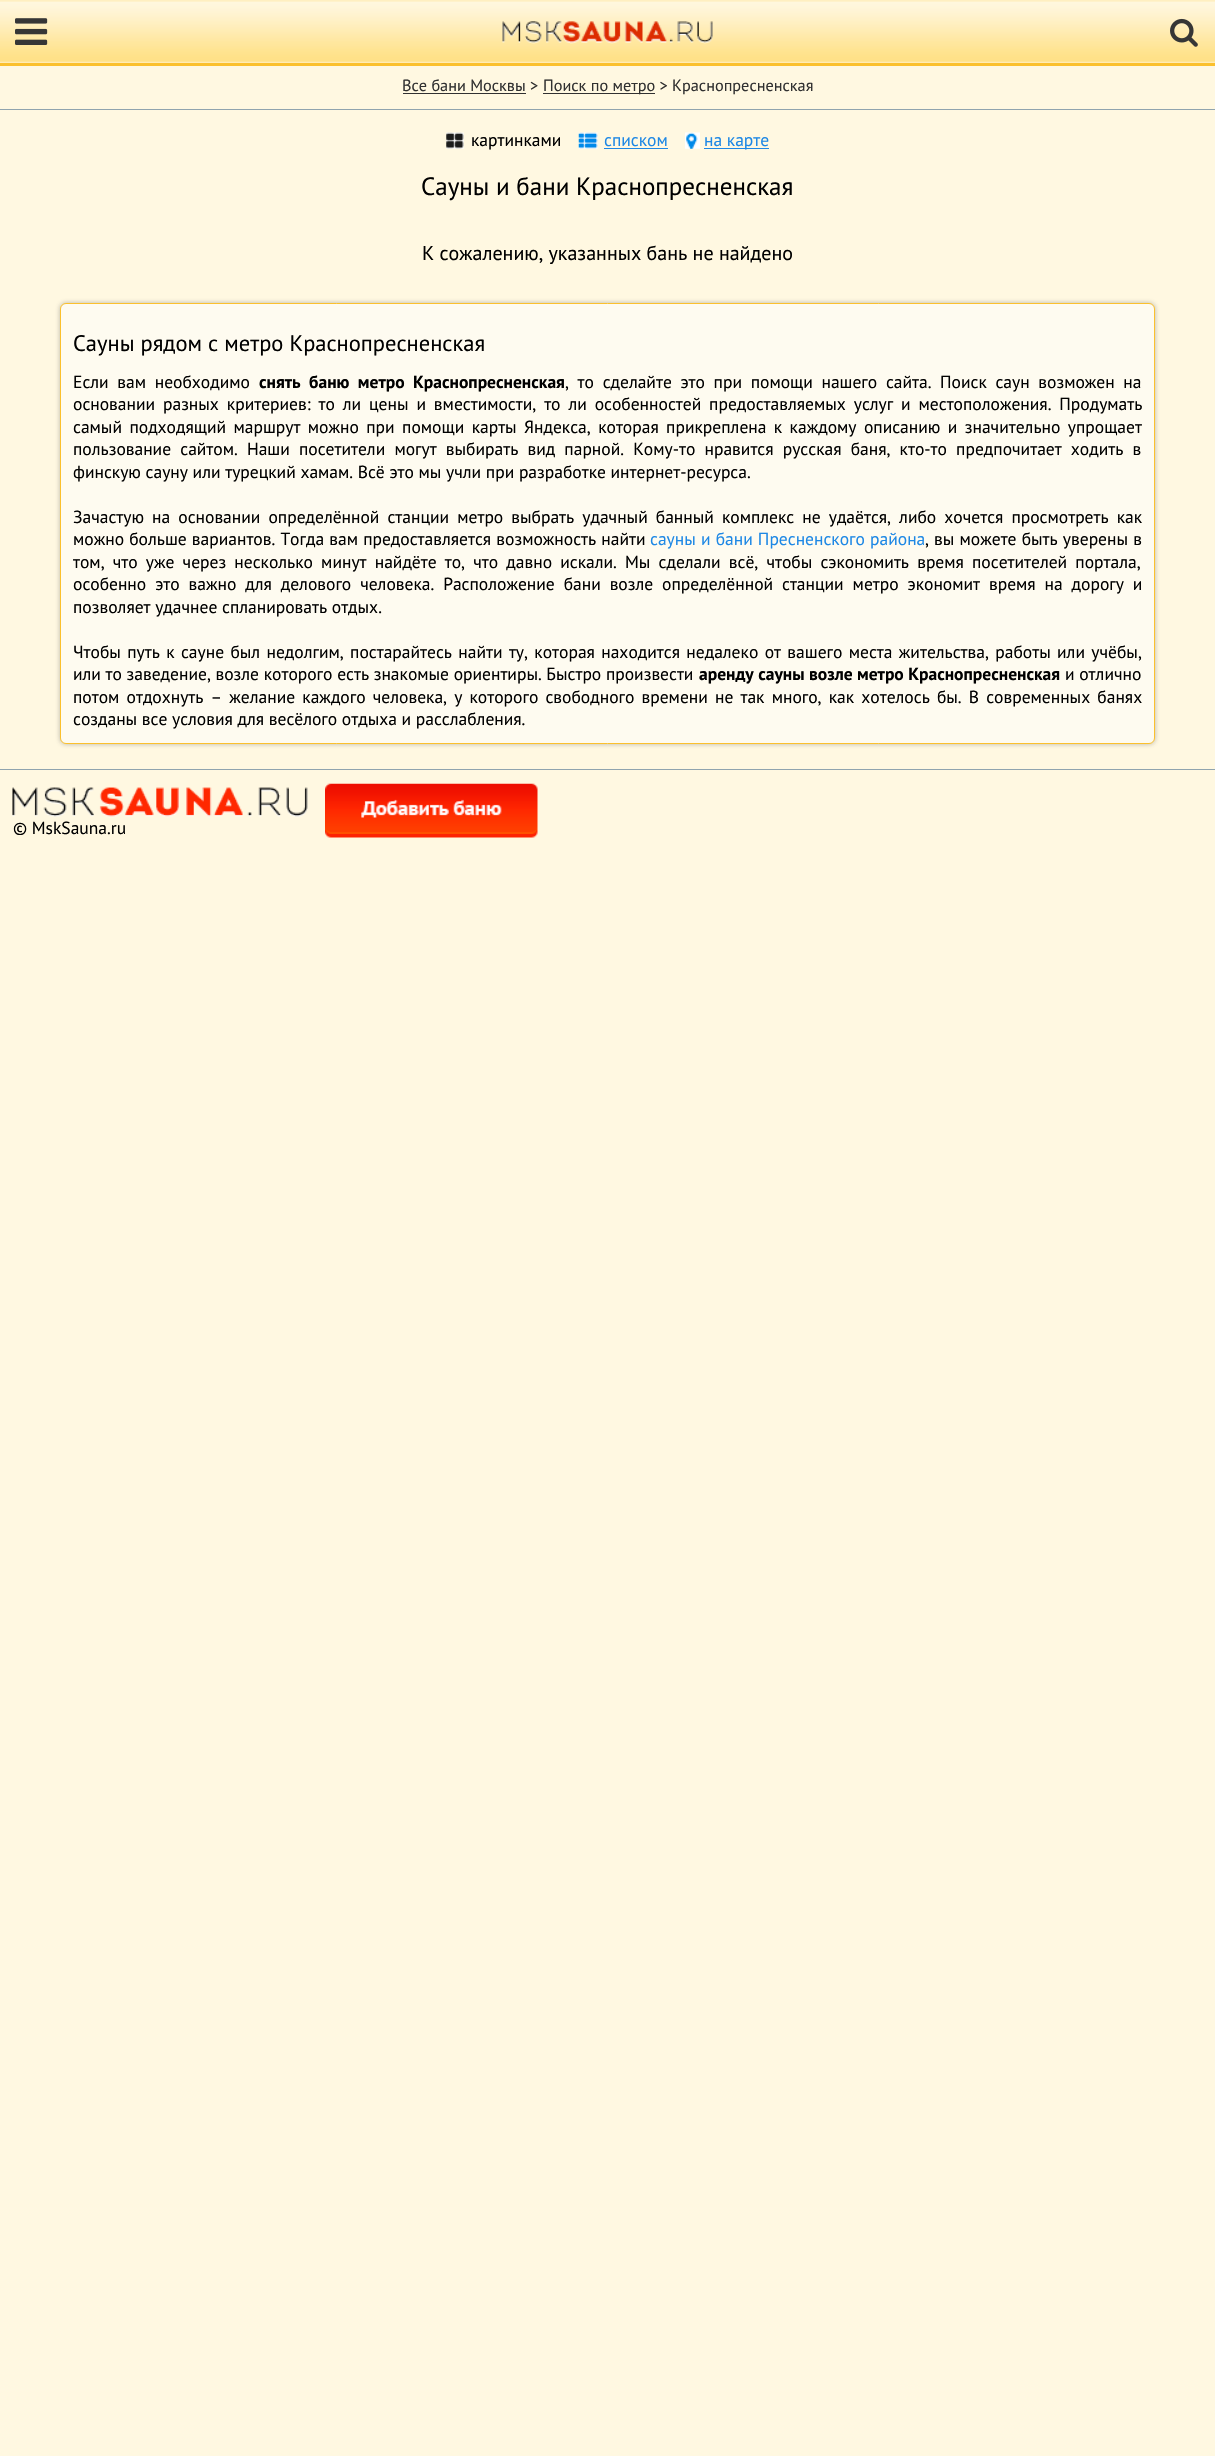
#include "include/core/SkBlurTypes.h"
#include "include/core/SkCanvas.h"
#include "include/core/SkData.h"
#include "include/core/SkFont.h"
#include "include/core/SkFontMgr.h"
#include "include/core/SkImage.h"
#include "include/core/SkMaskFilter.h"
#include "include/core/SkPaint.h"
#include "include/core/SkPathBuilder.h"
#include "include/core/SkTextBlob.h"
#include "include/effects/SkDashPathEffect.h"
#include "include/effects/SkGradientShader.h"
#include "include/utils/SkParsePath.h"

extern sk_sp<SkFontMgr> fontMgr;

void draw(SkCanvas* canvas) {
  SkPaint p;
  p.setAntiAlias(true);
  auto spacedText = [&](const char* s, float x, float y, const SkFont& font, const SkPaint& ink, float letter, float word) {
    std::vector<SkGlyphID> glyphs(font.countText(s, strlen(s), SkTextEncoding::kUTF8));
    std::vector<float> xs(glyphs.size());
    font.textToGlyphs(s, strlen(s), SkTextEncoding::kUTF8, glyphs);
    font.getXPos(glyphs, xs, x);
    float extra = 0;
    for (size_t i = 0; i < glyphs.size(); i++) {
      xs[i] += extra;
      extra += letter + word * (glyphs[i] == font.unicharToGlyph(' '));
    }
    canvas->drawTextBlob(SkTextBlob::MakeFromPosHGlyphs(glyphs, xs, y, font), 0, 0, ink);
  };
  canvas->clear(SkColorSetRGB(255, 248, 225));
  p.setColor(SK_ColorWHITE);
  canvas->drawRect(SkRect::MakeLTRB(0, 60, 1215, 63), p);
  canvas->drawImageRect(SkImages::DeferredFromEncodedData(SkData::MakeFromFileName("images/1.png")), SkRect::MakeLTRB(0, 0, 1215, 63), SkSamplingOptions());
  p.setColor(SkColorSetRGB(251, 192, 45));
  canvas->drawRect(SkRect::MakeLTRB(0, 63, 1215, 66), p);
  canvas->drawImageRect(SkImages::DeferredFromEncodedData(SkData::MakeFromFileName("images/2.png")), SkRect::MakeLTRB(15, 18, 48, 45), SkSamplingOptions());
  canvas->drawImageRect(SkImages::DeferredFromEncodedData(SkData::MakeFromFileName("images/3.png")), SkRect::MakeLTRB(502, 21, 713, 44), SkSamplingOptions());
  canvas->drawImageRect(SkImages::DeferredFromEncodedData(SkData::MakeFromFileName("images/4.png")), SkRect::MakeLTRB(1170, 18, 1198, 47), SkSamplingOptions());
  p.setColor(SkColorSetRGB(144, 164, 174));
  canvas->drawRect(SkRect::MakeLTRB(0, 109, 1215, 110), p);
  p.setColor(SkColorSetRGB(49, 49, 49));
  canvas->drawRect(SkRect::MakeLTRB(403, 93, 526, 94), p);
  canvas->drawRect(SkRect::MakeLTRB(543, 93, 655, 94), p);
  canvas->drawImageRect(SkImages::DeferredFromEncodedData(SkData::MakeFromFileName("images/5.png")), SkRect::MakeLTRB(446, 132, 464, 149), SkSamplingOptions());
  canvas->drawImageRect(SkImages::DeferredFromEncodedData(SkData::MakeFromFileName("images/6.png")), SkRect::MakeLTRB(578, 132, 598, 149), SkSamplingOptions());
  p.setColor(SkColorSetRGB(30, 136, 229));
  canvas->drawRect(SkRect::MakeLTRB(604, 148, 668, 149), p);
  canvas->drawImageRect(SkImages::DeferredFromEncodedData(SkData::MakeFromFileName("images/7.png")), SkRect::MakeLTRB(685, 132, 700, 149), SkSamplingOptions());
  canvas->drawRect(SkRect::MakeLTRB(704, 148, 769, 149), p);
  p.setColor(SkColorSetARGB(89, 50, 50, 50));
  p.setMaskFilter(SkMaskFilter::MakeBlur(kNormal_SkBlurStyle, 2.5f));
  canvas->drawRoundRect(SkRect::MakeLTRB(60, 303, 1155, 744), 6, 6, p);
  p.setMaskFilter(nullptr);
  p.setColor(SkColorSetRGB(254, 251, 240));
  canvas->drawRoundRect(SkRect::MakeLTRB(60.5f, 303.5f, 1154.5f, 743.5f), 5.5f, 5.5f, p);
  p.setStyle(SkPaint::kStroke_Style);
  p.setStrokeWidth(1);
  p.setColor(SkColorSetRGB(251, 192, 45));
  canvas->drawRoundRect(SkRect::MakeLTRB(60.5f, 303.5f, 1154.5f, 743.5f), 5.5f, 5.5f, p);
  p.setStyle(SkPaint::kFill_Style);
  p.setColor(SkColorSetRGB(144, 164, 174));
  canvas->drawRect(SkRect::MakeLTRB(0, 769, 1215, 770), p);
  canvas->drawImageRect(SkImages::DeferredFromEncodedData(SkData::MakeFromFileName("images/8.png")), SkRect::MakeLTRB(12, 787, 308, 818), SkSamplingOptions());
  canvas->drawImageRect(SkImages::DeferredFromEncodedData(SkData::MakeFromFileName("images/9.png")), SkRect::MakeLTRB(325, 783, 538, 838), SkSamplingOptions());
  SkFont font1(fontMgr->matchFamilyStyle("PT Sans", SkFontStyle::Normal()), 16.25f);
  font1.setSubpixel(true);
  p.setColor(SkColorSetRGB(49, 49, 49));
  canvas->drawString("Все бани Москвы >", 402, 91, font1, p);
  canvas->drawString("Поиск по метро > Краснопресненская", 543, 91, font1, p);
  SkFont font2(fontMgr->matchFamilyStyle("PT Sans", SkFontStyle::Normal()), 17.5f);
  font2.setSubpixel(true);
  p.setColor(SK_ColorBLACK);
  canvas->drawString("картинками", 471, 146, font2, p);
  p.setColor(SkColorSetRGB(30, 136, 229));
  canvas->drawString("списком", 604, 146, font2, p);
  canvas->drawString("на карте", 704, 146, font2, p);
  SkFont font3(fontMgr->matchFamilyStyle("PT Sans", SkFontStyle::Normal()), 25);
  font3.setSubpixel(true);
  p.setColor(SK_ColorBLACK);
  canvas->drawString("Сауны и бани Краснопресненская", 421, 195, font3, p);
  SkFont font4(fontMgr->matchFamilyStyle("PT Sans", SkFontStyle::Normal()), 20);
  font4.setSubpixel(true);
  canvas->drawString("К сожалению, указанных бань не найдено", 422, 260, font4, p);
  SkFont font5(fontMgr->matchFamilyStyle("PT Sans", SkFontStyle::Normal()), 22.5f);
  font5.setSubpixel(true);
  canvas->drawString("Сауны рядом с метро Краснопресненская", 73, 351, font5, p);
  spacedText("Если вам необходимо", 73, 388, font2, p, 0, 4);
  SkFont font6(fontMgr->matchFamilyStyle("PT Sans", SkFontStyle::Bold()), 17.5f);
  font6.setSubpixel(true);
  spacedText("снять баню метро Краснопресненская", 259, 388, font6, p, 0, 4);
  spacedText(", то сделайте это при помощи нашего сайта. Поиск саун возможен на", 565, 388, font2, p, 0, 4);
  spacedText("основании разных критериев: то ли цены и вместимости, то ли особенностей предоставляемых услуг и местоположения. Продумать", 73, 410, font2, p, 0, 3.25f);
  spacedText("самый подходящий маршрут можно при помощи карты Яндекса, которая прикреплена к каждому описанию и значительно упрощает", 73, 433, font2, p, 0, 2.75f);
  spacedText("пользование сайтом. Наши посетители могут выбирать вид парной. Кому-то нравится русская баня, кто-то предпочитает ходить в", 73, 455, font2, p, 0, 4.5f);
  canvas->drawString("финскую сауну или турецкий хамам. Всё это мы учли при разработке интернет-ресурса.", 73, 478, font2, p);
  spacedText("Зачастую на основании определённой станции метро выбрать удачный банный комплекс не удаётся, либо хочется просмотреть как", 73, 523, font2, p, 0, 3.4f);
  spacedText("можно больше вариантов. Тогда вам предоставляется возможность найти", 73, 545, font2, p, 0, 0.5f);
  p.setColor(SkColorSetRGB(30, 136, 229));
  spacedText("сауны и бани Пресненского района", 650, 545, font2, p, 0, 0.5f);
  p.setColor(SK_ColorBLACK);
  spacedText(", вы можете быть уверены в", 925, 545, font2, p, 0, 0.5f);
  spacedText("том, что уже через несколько минут найдёте то, что давно искали. Мы сделали всё, чтобы сэкономить время посетителей портала,", 73, 568, font2, p, 0, 3.5f);
  spacedText("особенно это важно для делового человека. Расположение бани возле определённой станции метро экономит время на дорогу и", 73, 590, font2, p, 0, 4.25f);
  canvas->drawString("позволяет удачнее спланировать отдых.", 73, 613, font2, p);
  spacedText("Чтобы путь к сауне был недолгим, постарайтесь найти ту, которая находится недалеко от вашего места жительства, работы или учёбы,", 73, 658, font2, p, 0, 1.7f);
  canvas->drawString("или то заведение, возле которого есть знакомые ориентиры. Быстро произвести", 73, 680, font2, p);
  canvas->drawString("аренду сауны возле метро Краснопресненская", 699, 680, font6, p);
  canvas->drawString("и отлично", 1065, 680, font2, p);
  spacedText("потом отдохнуть – желание каждого человека, у которого свободного времени не так много, как хотелось бы. В современных банях", 73, 703, font2, p, 0, 2.5f);
  canvas->drawString("созданы все условия для весёлого отдыха и расслабления.", 73, 725, font2, p);
  canvas->drawString("© MskSauna.ru", 13, 834, font2, p);
}
